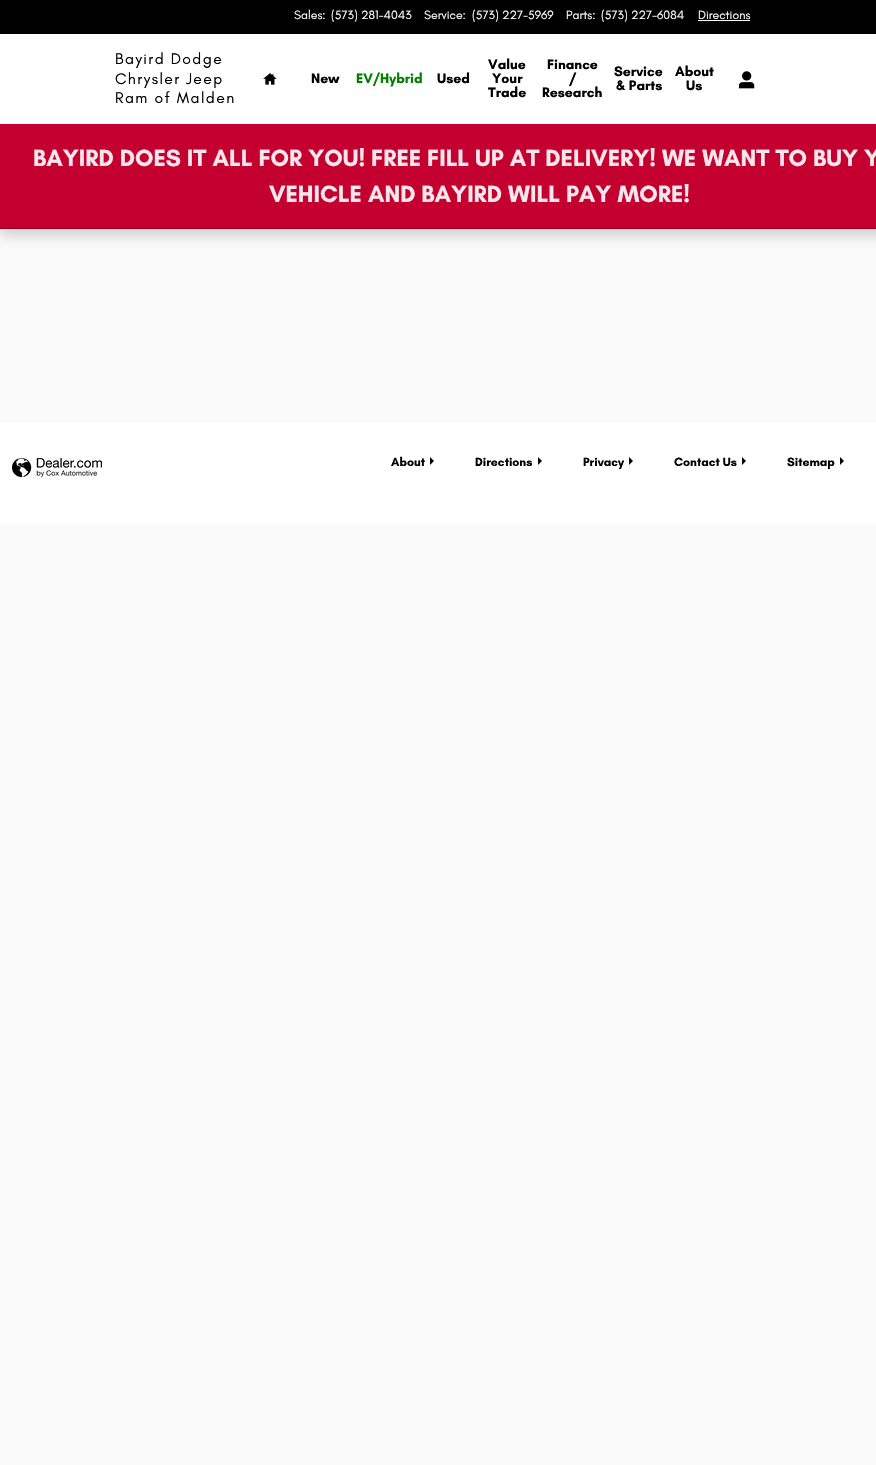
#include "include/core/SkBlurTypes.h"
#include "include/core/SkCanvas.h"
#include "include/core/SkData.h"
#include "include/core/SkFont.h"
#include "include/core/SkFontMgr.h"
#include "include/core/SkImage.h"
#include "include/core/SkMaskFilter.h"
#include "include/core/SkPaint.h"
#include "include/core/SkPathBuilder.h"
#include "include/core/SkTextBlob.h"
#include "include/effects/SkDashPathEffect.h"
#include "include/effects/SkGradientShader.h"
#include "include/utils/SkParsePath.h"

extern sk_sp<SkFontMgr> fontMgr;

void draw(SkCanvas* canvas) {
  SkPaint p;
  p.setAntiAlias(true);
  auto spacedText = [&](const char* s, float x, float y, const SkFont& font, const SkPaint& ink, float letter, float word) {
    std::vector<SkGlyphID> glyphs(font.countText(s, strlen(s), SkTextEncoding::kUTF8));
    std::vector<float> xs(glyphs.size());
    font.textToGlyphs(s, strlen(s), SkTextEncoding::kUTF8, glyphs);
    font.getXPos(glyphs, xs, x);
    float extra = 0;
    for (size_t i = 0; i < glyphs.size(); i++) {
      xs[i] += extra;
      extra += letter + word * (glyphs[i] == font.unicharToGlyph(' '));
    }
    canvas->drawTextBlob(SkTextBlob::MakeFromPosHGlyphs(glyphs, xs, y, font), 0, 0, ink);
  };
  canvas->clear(SkColorSetRGB(250, 250, 250));
  p.setColor(SkColorSetARGB(46, 0, 0, 0));
  p.setMaskFilter(SkMaskFilter::MakeBlur(kNormal_SkBlurStyle, 6));
  canvas->drawRect(SkRect::MakeLTRB(0, 6, 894, 235), p);
  p.setMaskFilter(nullptr);
  p.setColor(SK_ColorWHITE);
  canvas->drawRect(SkRect::MakeLTRB(0, 34, 876, 124), p);
  p.setColor(SkColorSetRGB(144, 0, 29));
  canvas->drawRect(SkRect::MakeLTRB(0, 228, 876, 229), p);
  p.setColor(SK_ColorBLACK);
  canvas->drawRect(SkRect::MakeLTRB(0, 0, 876, 34), p);
  p.setColor(SK_ColorWHITE);
  canvas->drawRect(SkRect::MakeLTRB(698, 20, 750, 21), p);
  canvas->drawImageRect(SkImages::DeferredFromEncodedData(SkData::MakeFromFileName("images/1.png")), SkRect::MakeLTRB(263, 73, 277, 85), SkSamplingOptions());
  canvas->drawImageRect(SkImages::DeferredFromEncodedData(SkData::MakeFromFileName("images/2.png")), SkRect::MakeLTRB(738, 71, 755, 89), SkSamplingOptions());
  p.setColor(SkColorSetRGB(195, 0, 47));
  canvas->drawRect(SkRect::MakeLTRB(0, 124, 876, 228), p);
  p.setColor(SK_ColorWHITE);
  canvas->drawRect(SkRect::MakeLTRB(0, 423, 876, 523), p);
  canvas->drawImageRect(SkImages::DeferredFromEncodedData(SkData::MakeFromFileName("images/3.png")), SkRect::MakeLTRB(12, 458, 102, 477), SkSamplingOptions());
  p.setColor(SK_ColorBLACK);
  canvas->drawPath(SkPathBuilder().moveTo(430, 457).lineTo(430, 465).lineTo(434, 461).close().detach(), p);
  canvas->drawPath(SkPathBuilder().moveTo(538, 457).lineTo(538, 465).lineTo(542, 461).close().detach(), p);
  canvas->drawPath(SkPathBuilder().moveTo(629, 457).lineTo(629, 465).lineTo(633, 461).close().detach(), p);
  canvas->drawPath(SkPathBuilder().moveTo(742, 457).lineTo(742, 465).lineTo(746, 461).close().detach(), p);
  canvas->drawPath(SkPathBuilder().moveTo(840, 457).lineTo(840, 465).lineTo(844, 461).close().detach(), p);
  SkFont font1(fontMgr->matchFamilyStyle("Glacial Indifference", SkFontStyle::Normal()), 12.25f);
  font1.setSubpixel(true);
  p.setColor(SK_ColorWHITE);
  canvas->drawString("Sales:", 294, 19, font1, p);
  canvas->drawString("(573) 281-4043", 331, 19, font1, p);
  canvas->drawString("Service:", 424, 19, font1, p);
  canvas->drawString("(573) 227-5969", 472, 19, font1, p);
  canvas->drawString("Parts:", 566, 19, font1, p);
  canvas->drawString("(573) 227-6084", 601, 19, font1, p);
  canvas->drawString("Directions", 698, 19, font1, p);
  SkFont font2(fontMgr->matchFamilyStyle("Glacial Indifference", SkFontStyle::Normal()), 15.75f);
  font2.setSubpixel(true);
  p.setColor(SK_ColorBLACK);
  spacedText("Bayird Dodge", 115, 64, font2, p, 1.4f, 0);
  spacedText("Chrysler Jeep", 115, 84, font2, p, 1.4f, 0);
  spacedText("Ram of Malden", 115, 103, font2, p, 1.4f, 0);
  SkFont font3(fontMgr->matchFamilyStyle("Glacial Indifference", SkFontStyle::Bold()), 14);
  font3.setSubpixel(true);
  canvas->drawString("New", 311, 83, font3, p);
  p.setColor(SkColorSetRGB(0, 128, 0));
  canvas->drawString("EV/Hybrid", 356, 83, font3, p);
  p.setColor(SK_ColorBLACK);
  canvas->drawString("Used", 437, 83, font3, p);
  canvas->drawString("Value", 488, 69, font3, p);
  canvas->drawString("Your", 492, 83, font3, p);
  canvas->drawString("Trade", 488, 97, font3, p);
  canvas->drawString("Finance", 547, 69, font3, p);
  canvas->drawString("/", 569, 83, font3, p);
  canvas->drawString("Research", 542, 97, font3, p);
  canvas->drawString("Service", 614, 76, font3, p);
  canvas->drawString("& Parts", 616, 90, font3, p);
  canvas->drawString("About", 675, 76, font3, p);
  canvas->drawString("Us", 686, 90, font3, p);
  SkFont font4(fontMgr->matchFamilyStyle("Glacial Indifference", SkFontStyle::Bold()), 24);
  font4.setSubpixel(true);
  p.setColor(SkColorSetRGB(249, 230, 234));
  canvas->drawString("BAYIRD DOES IT ALL FOR YOU! FREE FILL UP AT DELIVERY! WE WANT TO BUY Y", 33, 166, font4, p);
  canvas->drawString("VEHICLE AND BAYIRD WILL PAY MORE!", 269, 202, font4, p);
  SkFont font5(fontMgr->matchFamilyStyle("Glacial Indifference", SkFontStyle::Bold()), 12.25f);
  font5.setSubpixel(true);
  p.setColor(SK_ColorBLACK);
  canvas->drawString("About", 391, 466, font5, p);
  canvas->drawString("Directions", 475, 466, font5, p);
  canvas->drawString("Privacy", 583, 466, font5, p);
  canvas->drawString("Contact Us", 674, 466, font5, p);
  canvas->drawString("Sitemap", 787, 466, font5, p);
}
